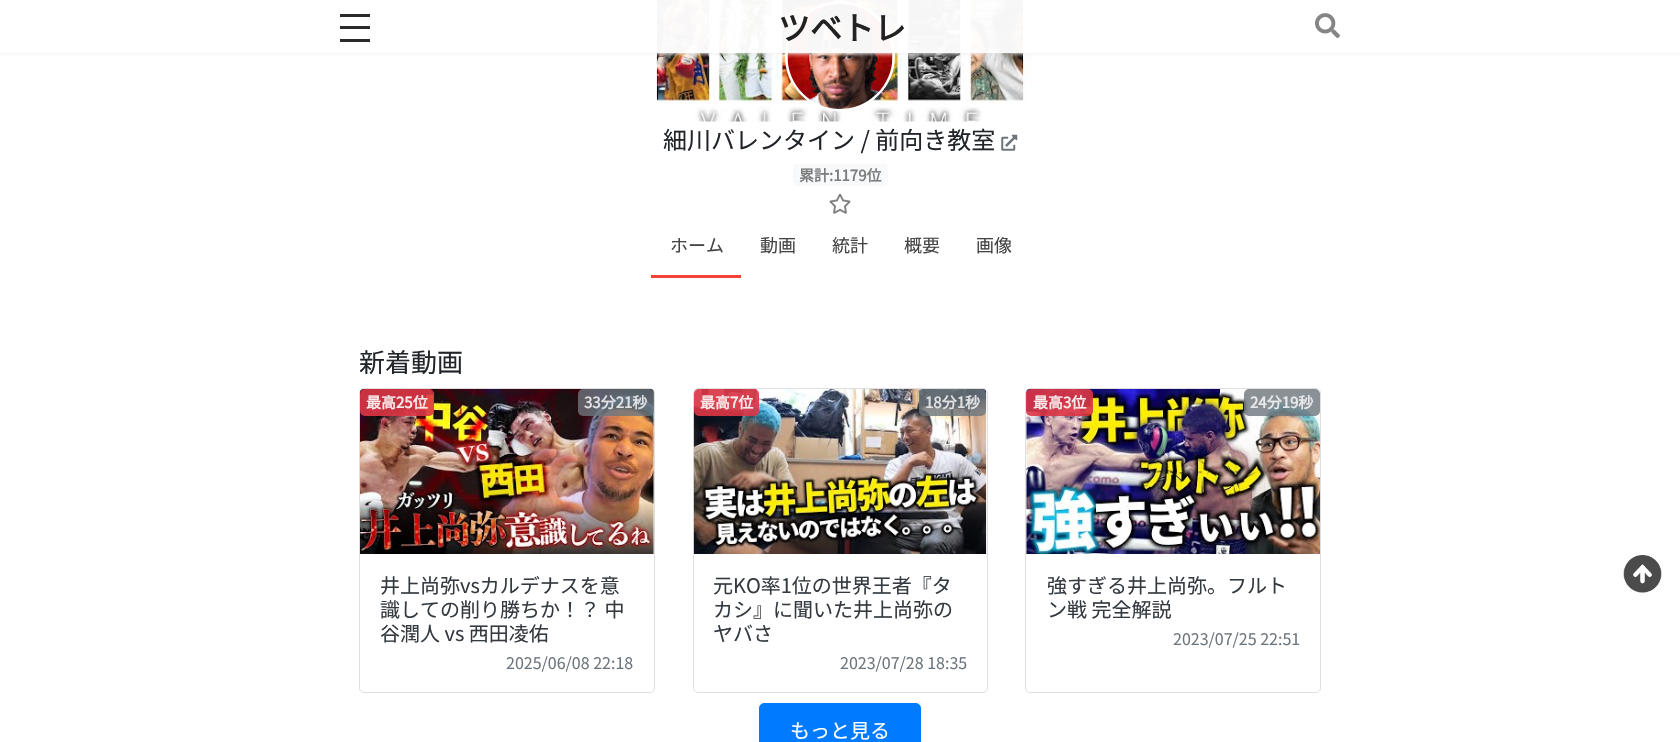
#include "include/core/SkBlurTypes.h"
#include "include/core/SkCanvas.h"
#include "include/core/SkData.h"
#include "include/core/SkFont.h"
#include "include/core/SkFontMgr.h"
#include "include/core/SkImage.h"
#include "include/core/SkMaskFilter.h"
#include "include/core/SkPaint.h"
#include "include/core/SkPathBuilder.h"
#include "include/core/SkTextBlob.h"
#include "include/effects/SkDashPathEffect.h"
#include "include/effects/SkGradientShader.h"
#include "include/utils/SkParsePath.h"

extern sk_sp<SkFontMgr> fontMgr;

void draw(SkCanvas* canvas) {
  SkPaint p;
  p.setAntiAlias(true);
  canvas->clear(SK_ColorWHITE);
  canvas->drawImageRect(SkImages::DeferredFromEncodedData(SkData::MakeFromFileName("images/2.png")), SkRect::MakeLTRB(656, 0, 1033, 122), SkSamplingOptions());
  p.setStyle(SkPaint::kStroke_Style);
  p.setStrokeWidth(3);
  p.setColor(SK_ColorWHITE);
  canvas->drawCircle(840, 56, 53.5f, p);
  canvas->drawImageRect(SkImages::DeferredFromEncodedData(SkData::MakeFromFileName("images/3.png")), SkRect::MakeLTRB(787, 4, 893, 109), SkSamplingOptions());
  canvas->save();
  canvas->clipPath(SkPathBuilder(SkPathFillType::kEvenOdd).moveTo(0, 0).lineTo(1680, 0).lineTo(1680, 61).lineTo(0, 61).close().moveTo(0, 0).lineTo(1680, 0).lineTo(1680, 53).lineTo(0, 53).close().detach(), true);
  p.setStyle(SkPaint::kFill_Style);
  p.setColor(SkColorSetARGB(245, 240, 240, 240));
  p.setMaskFilter(SkMaskFilter::MakeBlur(kNormal_SkBlurStyle, 2));
  canvas->drawRect(SkRect::MakeLTRB(0, 1, 1680, 54), p);
  p.setMaskFilter(nullptr);
  canvas->restore();
  p.setColor(SkColorSetARGB(245, 255, 255, 255));
  canvas->drawRect(SkRect::MakeLTRB(0, 0, 1680, 53), p);
  p.setColor(SkColorSetRGB(43, 43, 43));
  canvas->drawRect(SkRect::MakeLTRB(340, 26, 370, 29), p);
  canvas->drawRect(SkRect::MakeLTRB(340, 14, 370, 17), p);
  canvas->drawRect(SkRect::MakeLTRB(340, 39, 370, 42), p);
  canvas->drawImageRect(SkImages::DeferredFromEncodedData(SkData::MakeFromFileName("images/1.png")), SkRect::MakeLTRB(1315, 13, 1340, 39), SkSamplingOptions());
  canvas->drawImageRect(SkImages::DeferredFromEncodedData(SkData::MakeFromFileName("images/4.png")), SkRect::MakeLTRB(1001, 134, 1018, 151), SkSamplingOptions());
  p.setColor(SkColorSetRGB(248, 249, 250));
  canvas->drawRoundRect(SkRect::MakeLTRB(793, 164, 888, 186), 5, 5, p);
  canvas->drawImageRect(SkImages::DeferredFromEncodedData(SkData::MakeFromFileName("images/5.png")), SkRect::MakeLTRB(829, 193, 851, 214), SkSamplingOptions());
  p.setColor(SkColorSetRGB(244, 67, 54));
  canvas->drawRect(SkRect::MakeLTRB(651, 275, 741, 278), p);
  p.setStyle(SkPaint::kStroke_Style);
  p.setStrokeWidth(1);
  p.setColor(SkColorSetRGB(223, 223, 223));
  canvas->drawRoundRect(SkRect::MakeLTRB(359.5f, 388.5f, 654.5f, 692.5f), 4.5f, 4.5f, p);
  canvas->drawImageRect(SkImages::DeferredFromEncodedData(SkData::MakeFromFileName("images/6.png")), SkRect::MakeLTRB(360, 389, 654, 554), SkSamplingOptions());
  p.setStyle(SkPaint::kFill_Style);
  p.setColor(SkColorSetARGB(230, 220, 53, 69));
  canvas->drawRoundRect(SkRect::MakeLTRB(360, 389, 434, 416), 5, 5, p);
  p.setColor(SkColorSetARGB(204, 108, 117, 125));
  canvas->drawRoundRect(SkRect::MakeLTRB(578, 389, 654, 416), 5, 5, p);
  p.setStyle(SkPaint::kStroke_Style);
  p.setColor(SkColorSetRGB(223, 223, 223));
  canvas->drawRoundRect(SkRect::MakeLTRB(693.5f, 388.5f, 987.5f, 692.5f), 4.5f, 4.5f, p);
  canvas->drawImageRect(SkImages::DeferredFromEncodedData(SkData::MakeFromFileName("images/7.png")), SkRect::MakeLTRB(693, 389, 987, 554), SkSamplingOptions());
  p.setStyle(SkPaint::kFill_Style);
  p.setColor(SkColorSetARGB(230, 220, 53, 69));
  canvas->drawRoundRect(SkRect::MakeLTRB(694, 389, 759, 416), 5, 5, p);
  p.setColor(SkColorSetARGB(204, 108, 117, 125));
  canvas->drawRoundRect(SkRect::MakeLTRB(919, 389, 986, 416), 5, 5, p);
  p.setStyle(SkPaint::kStroke_Style);
  p.setColor(SkColorSetRGB(223, 223, 223));
  canvas->drawRoundRect(SkRect::MakeLTRB(1025.5f, 388.5f, 1320.5f, 692.5f), 4.5f, 4.5f, p);
  canvas->drawImageRect(SkImages::DeferredFromEncodedData(SkData::MakeFromFileName("images/8.png")), SkRect::MakeLTRB(1026, 389, 1320, 554), SkSamplingOptions());
  p.setStyle(SkPaint::kFill_Style);
  p.setColor(SkColorSetARGB(230, 220, 53, 69));
  canvas->drawRoundRect(SkRect::MakeLTRB(1026, 389, 1093, 416), 5, 5, p);
  p.setColor(SkColorSetARGB(204, 108, 117, 125));
  canvas->drawRoundRect(SkRect::MakeLTRB(1244, 389, 1320, 416), 5, 5, p);
  p.setColor(SkColorSetRGB(0, 123, 255));
  canvas->drawRoundRect(SkRect::MakeLTRB(759.5f, 703.5f, 920.5f, 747.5f), 4.5f, 4.5f, p);
  p.setStyle(SkPaint::kStroke_Style);
  canvas->drawRoundRect(SkRect::MakeLTRB(759.5f, 703.5f, 920.5f, 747.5f), 4.5f, 4.5f, p);
  canvas->drawImageRect(SkImages::DeferredFromEncodedData(SkData::MakeFromFileName("images/9.png")), SkRect::MakeLTRB(1623, 555, 1662, 593), SkSamplingOptions());
  SkFont font1(fontMgr->matchFamilyStyle("Noto Sans CJK JP", SkFontStyle::Bold()), 32);
  font1.setSubpixel(true);
  p.setStyle(SkPaint::kFill_Style);
  p.setColor(SkColorSetRGB(34, 34, 34));
  canvas->drawString("ツベトレ", 778, 40, font1, p);
  SkFont font2(fontMgr->matchFamilyStyle("Noto Sans CJK JP", SkFontStyle::Normal()), 24);
  font2.setSubpixel(true);
  p.setColor(SkColorSetRGB(33, 37, 41));
  canvas->drawString("細川バレンタイン / 前向き教室", 663, 149, font2, p);
  SkFont font3(fontMgr->matchFamilyStyle("Noto Sans CJK JP", SkFontStyle::Bold()), 15);
  font3.setSubpixel(true);
  p.setColor(SkColorSetRGB(124, 125, 125));
  canvas->drawString("累計:1179位", 799, 181, font3, p);
  SkFont font4(fontMgr->matchFamilyStyle("Noto Sans CJK JP", SkFontStyle::Normal()), 18);
  font4.setSubpixel(true);
  p.setColor(SkColorSetRGB(68, 68, 68));
  canvas->drawString("ホーム", 670, 252, font4, p);
  canvas->drawString("動画", 760, 252, font4, p);
  canvas->drawString("統計", 832, 252, font4, p);
  canvas->drawString("概要", 904, 252, font4, p);
  canvas->drawString("画像", 976, 252, font4, p);
  SkFont font5(fontMgr->matchFamilyStyle("Noto Sans CJK JP", SkFontStyle::Normal()), 26);
  font5.setSubpixel(true);
  p.setColor(SkColorSetRGB(33, 37, 41));
  canvas->drawString("新着動画", 359, 372, font5, p);
  p.setColor(SkColorSetRGB(250, 235, 236));
  canvas->drawString("最高25位", 366, 408, font3, p);
  p.setColor(SkColorSetRGB(223, 225, 227));
  canvas->drawString("33分21秒", 584, 408, font3, p);
  SkFont font6(fontMgr->matchFamilyStyle("Noto Sans CJK JP", SkFontStyle::Normal()), 20);
  font6.setSubpixel(true);
  p.setColor(SkColorSetRGB(52, 58, 64));
  canvas->drawString("井上尚弥vsカルデナスを意", 380, 593, font6, p);
  canvas->drawString("識しての削り勝ちか！？ 中", 380, 617, font6, p);
  canvas->drawString("谷潤人 vs 西田凌佑", 380, 641, font6, p);
  SkFont font7(fontMgr->matchFamilyStyle("Noto Sans CJK JP", SkFontStyle::Normal()), 16);
  font7.setSubpixel(true);
  p.setColor(SkColorSetRGB(108, 117, 125));
  canvas->drawString("2025/06/08 22:18", 506, 669, font7, p);
  p.setColor(SkColorSetRGB(250, 235, 236));
  canvas->drawString("最高7位", 700, 408, font3, p);
  p.setColor(SkColorSetRGB(223, 225, 227));
  canvas->drawString("18分1秒", 925, 408, font3, p);
  p.setColor(SkColorSetRGB(52, 58, 64));
  canvas->drawString("元KO率1位の世界王者『タ", 713, 593, font6, p);
  canvas->drawString("カシ』に聞いた井上尚弥の", 713, 617, font6, p);
  canvas->drawString("ヤバさ", 713, 641, font6, p);
  p.setColor(SkColorSetRGB(108, 117, 125));
  canvas->drawString("2023/07/28 18:35", 840, 669, font7, p);
  p.setColor(SkColorSetRGB(250, 235, 236));
  canvas->drawString("最高3位", 1033, 408, font3, p);
  p.setColor(SkColorSetRGB(231, 233, 234));
  canvas->drawString("24分19秒", 1250, 408, font3, p);
  p.setColor(SkColorSetRGB(52, 58, 64));
  canvas->drawString("強すぎる井上尚弥。フルト", 1047, 593, font6, p);
  canvas->drawString("ン戦 完全解説", 1047, 617, font6, p);
  p.setColor(SkColorSetRGB(108, 117, 125));
  canvas->drawString("2023/07/25 22:51", 1173, 645, font7, p);
  p.setColor(SK_ColorWHITE);
  canvas->drawString("もっと見る", 790, 738, font6, p);
}
